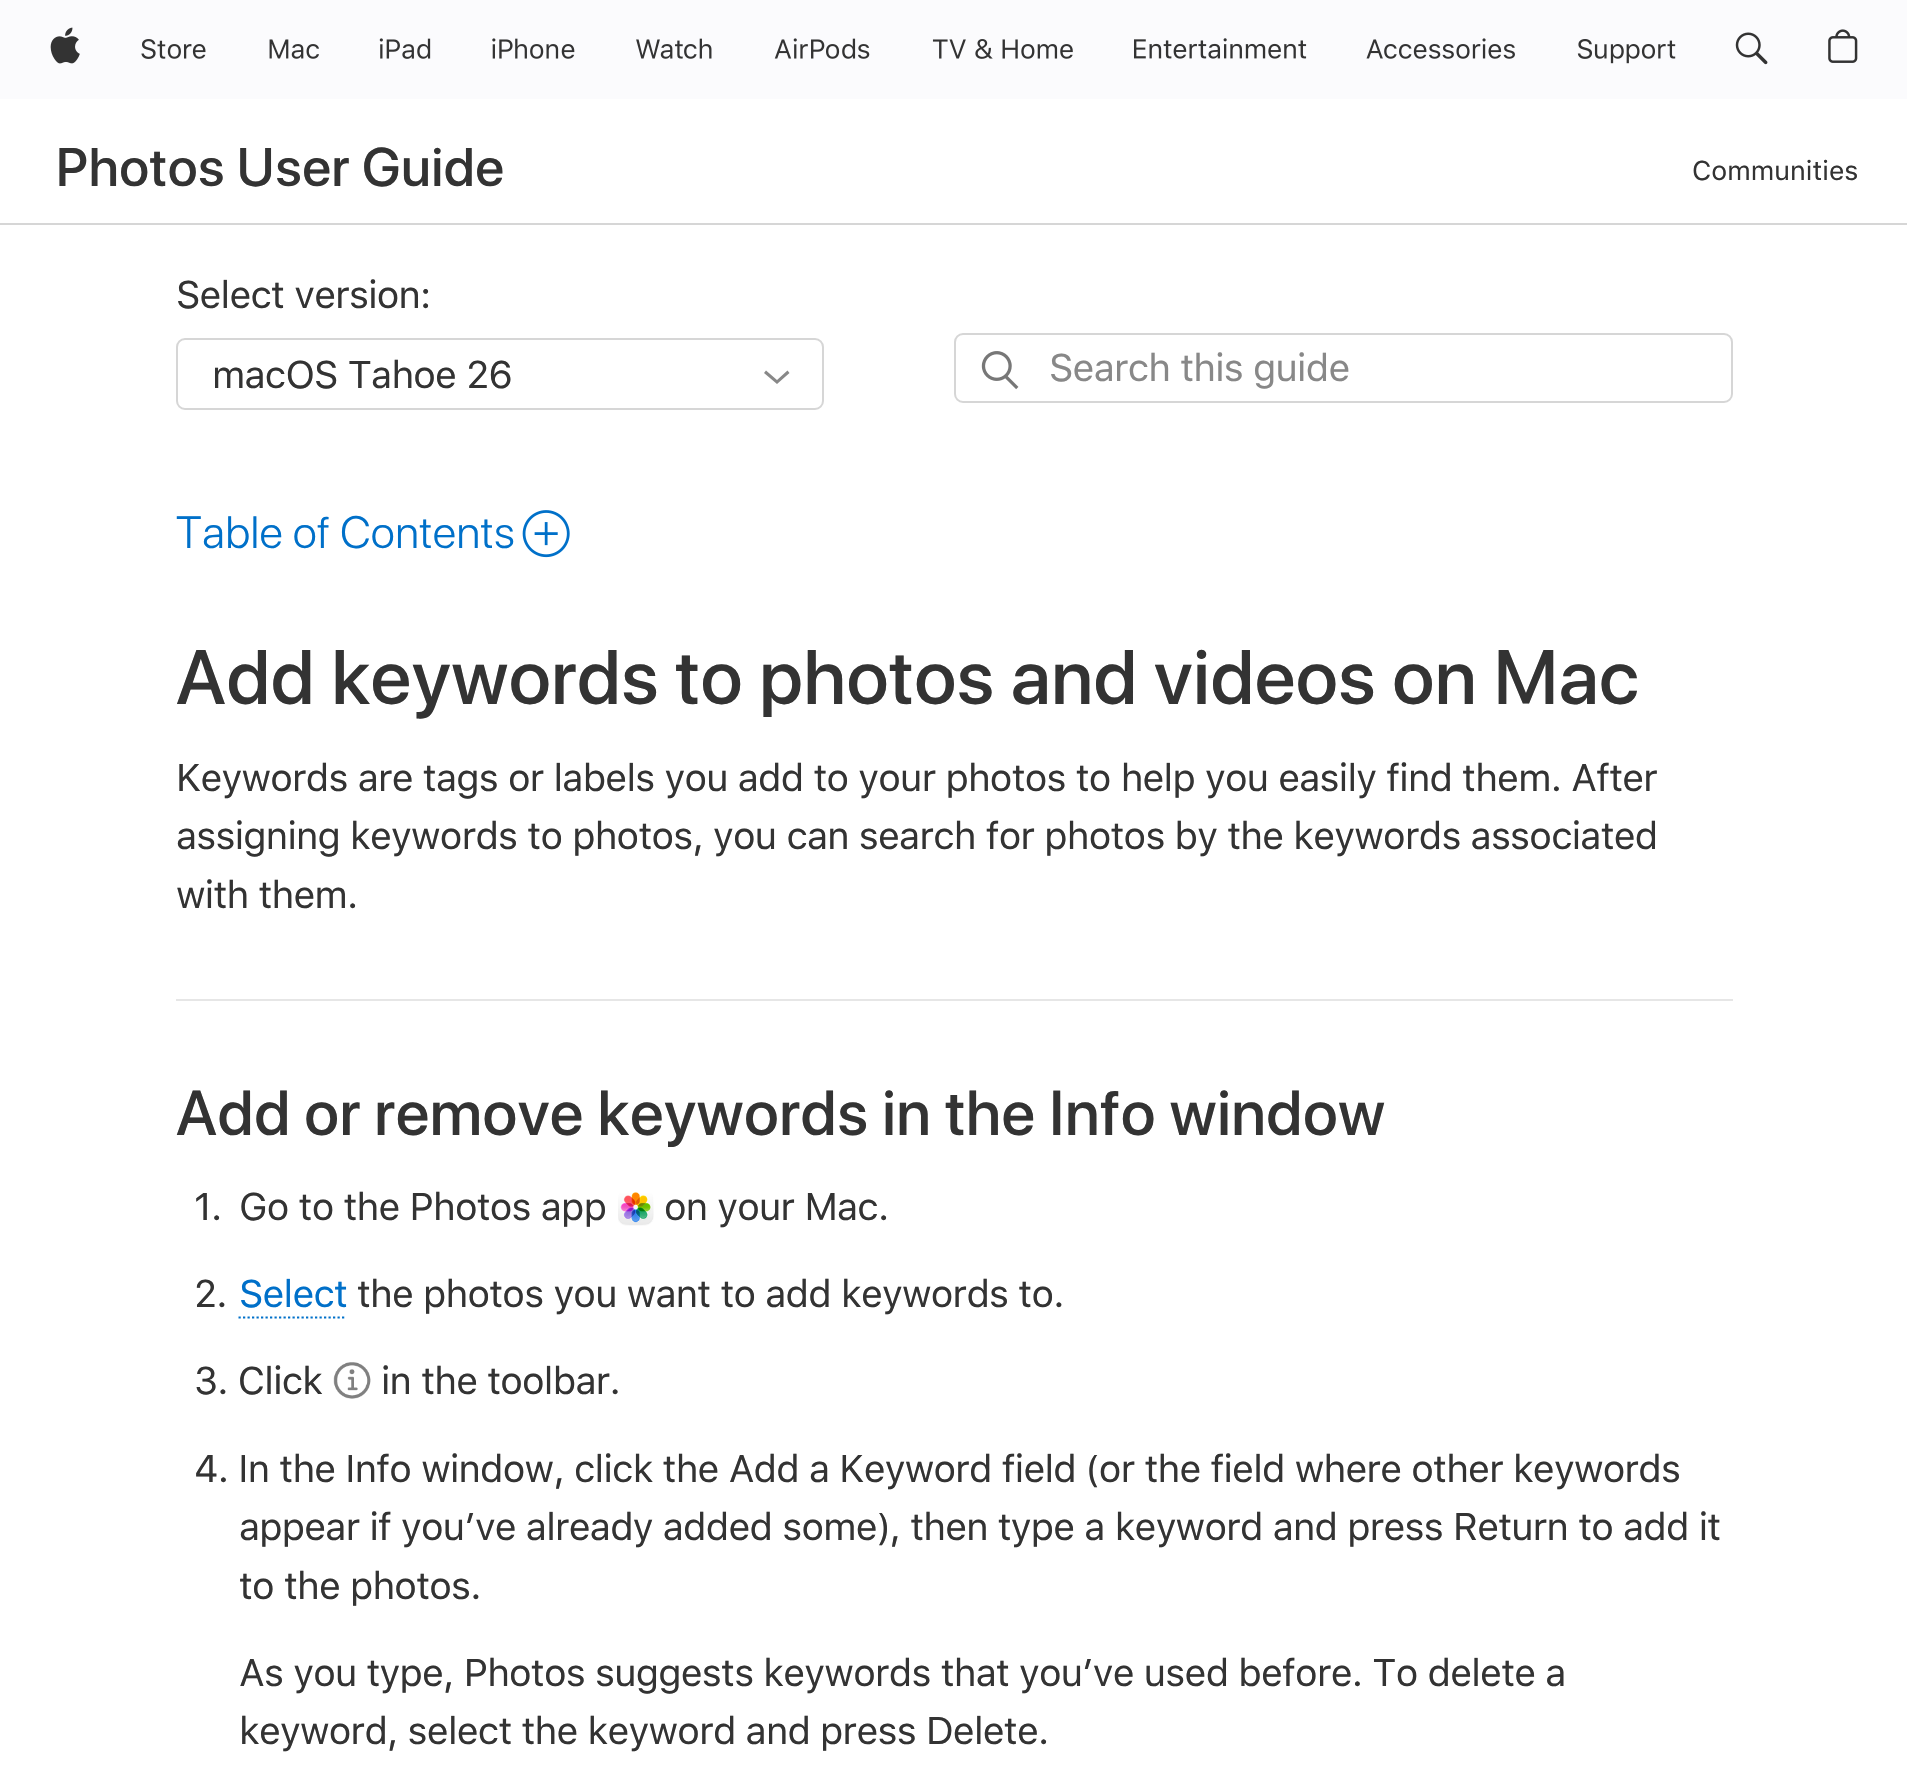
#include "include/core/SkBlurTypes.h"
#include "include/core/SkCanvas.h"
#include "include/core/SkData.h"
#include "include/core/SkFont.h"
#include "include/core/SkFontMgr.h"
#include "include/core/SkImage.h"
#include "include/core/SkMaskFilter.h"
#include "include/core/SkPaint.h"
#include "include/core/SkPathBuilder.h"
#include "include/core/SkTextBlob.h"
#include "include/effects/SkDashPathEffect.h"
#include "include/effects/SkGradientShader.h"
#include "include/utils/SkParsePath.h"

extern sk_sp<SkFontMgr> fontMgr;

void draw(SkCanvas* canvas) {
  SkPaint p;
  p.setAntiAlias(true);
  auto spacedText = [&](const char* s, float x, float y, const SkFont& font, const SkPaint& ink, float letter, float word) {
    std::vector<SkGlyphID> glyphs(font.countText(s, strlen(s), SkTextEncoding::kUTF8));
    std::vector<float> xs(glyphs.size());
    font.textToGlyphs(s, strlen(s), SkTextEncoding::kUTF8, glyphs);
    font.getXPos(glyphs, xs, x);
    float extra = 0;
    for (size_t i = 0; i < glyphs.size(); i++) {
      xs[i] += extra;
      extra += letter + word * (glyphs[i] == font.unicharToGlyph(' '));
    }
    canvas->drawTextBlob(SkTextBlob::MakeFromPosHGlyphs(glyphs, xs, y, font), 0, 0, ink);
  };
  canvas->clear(SK_ColorWHITE);
  p.setColor(SkColorSetRGB(251, 251, 253));
  canvas->drawRect(SkRect::MakeLTRB(0, 0, 1907, 99), p);
  canvas->drawImageRect(SkImages::DeferredFromEncodedData(SkData::MakeFromFileName("images/1.png")), SkRect::MakeLTRB(50, 27, 80, 64), SkSamplingOptions());
  canvas->drawImageRect(SkImages::DeferredFromEncodedData(SkData::MakeFromFileName("images/2.png")), SkRect::MakeLTRB(141, 39, 206, 59), SkSamplingOptions());
  canvas->drawImageRect(SkImages::DeferredFromEncodedData(SkData::MakeFromFileName("images/3.png")), SkRect::MakeLTRB(269, 39, 319, 59), SkSamplingOptions());
  canvas->drawImageRect(SkImages::DeferredFromEncodedData(SkData::MakeFromFileName("images/4.png")), SkRect::MakeLTRB(379, 38, 431, 59), SkSamplingOptions());
  canvas->drawImageRect(SkImages::DeferredFromEncodedData(SkData::MakeFromFileName("images/5.png")), SkRect::MakeLTRB(492, 38, 575, 59), SkSamplingOptions());
  canvas->drawImageRect(SkImages::DeferredFromEncodedData(SkData::MakeFromFileName("images/6.png")), SkRect::MakeLTRB(636, 38, 712, 59), SkSamplingOptions());
  canvas->drawImageRect(SkImages::DeferredFromEncodedData(SkData::MakeFromFileName("images/7.png")), SkRect::MakeLTRB(774, 38, 870, 59), SkSamplingOptions());
  canvas->drawImageRect(SkImages::DeferredFromEncodedData(SkData::MakeFromFileName("images/8.png")), SkRect::MakeLTRB(932, 39, 1073, 59), SkSamplingOptions());
  canvas->drawImageRect(SkImages::DeferredFromEncodedData(SkData::MakeFromFileName("images/9.png")), SkRect::MakeLTRB(1134, 38, 1307, 59), SkSamplingOptions());
  canvas->drawImageRect(SkImages::DeferredFromEncodedData(SkData::MakeFromFileName("images/10.png")), SkRect::MakeLTRB(1366, 38, 1515, 59), SkSamplingOptions());
  canvas->drawImageRect(SkImages::DeferredFromEncodedData(SkData::MakeFromFileName("images/11.png")), SkRect::MakeLTRB(1577, 39, 1676, 64), SkSamplingOptions());
  canvas->drawImageRect(SkImages::DeferredFromEncodedData(SkData::MakeFromFileName("images/12.png")), SkRect::MakeLTRB(1735, 32, 1768, 65), SkSamplingOptions());
  canvas->drawImageRect(SkImages::DeferredFromEncodedData(SkData::MakeFromFileName("images/13.png")), SkRect::MakeLTRB(1828, 29, 1858, 63), SkSamplingOptions());
  p.setColor(SkColorSetRGB(214, 214, 214));
  canvas->drawRect(SkRect::MakeLTRB(0, 223, 1907, 225), p);
  p.setStyle(SkPaint::kStroke_Style);
  p.setStrokeWidth(2);
  canvas->drawRoundRect(SkRect::MakeLTRB(177, 339, 823, 409), 8, 8, p);
  p.setStyle(SkPaint::kFill_Style);
  p.setColor(SkColorSetRGB(136, 136, 136));
  canvas->drawPath(SkPathBuilder().moveTo(766, 370.5f).lineTo(764, 373).lineTo(777, 384).lineTo(789.5f, 373).lineTo(787.5f, 370.5f).lineTo(777, 380).close().detach(), p);
  p.setStyle(SkPaint::kStroke_Style);
  p.setColor(SkColorSetRGB(214, 214, 214));
  canvas->drawRoundRect(SkRect::MakeLTRB(955, 334, 1732, 402), 8, 8, p);
  canvas->drawImageRect(SkImages::DeferredFromEncodedData(SkData::MakeFromFileName("images/14.png")), SkRect::MakeLTRB(981, 351, 1019, 390), SkSamplingOptions());
  canvas->drawImageRect(SkImages::DeferredFromEncodedData(SkData::MakeFromFileName("images/15.png")), SkRect::MakeLTRB(522, 510, 570, 558), SkSamplingOptions());
  p.setStyle(SkPaint::kFill_Style);
  p.setColor(SkColorSetRGB(230, 230, 230));
  canvas->drawRect(SkRect::MakeLTRB(176, 999, 1733, 1001), p);
  canvas->drawImageRect(SkImages::DeferredFromEncodedData(SkData::MakeFromFileName("images/16.png")), SkRect::MakeLTRB(618, 1192, 654, 1226), SkSamplingOptions());
  p.setStyle(SkPaint::kStroke_Style);
  p.setStrokeWidth(2.2f);
  p.setColor(SkColorSetRGB(0, 112, 201));
  p.setPathEffect(SkDashPathEffect::Make({{2.25f, 2.25f}}, 0));
  canvas->drawPath(SkPathBuilder().moveTo(238.5f, 1317.5f).lineTo(346.5f, 1317.5f).detach(), p);
  p.setPathEffect(nullptr);
  canvas->drawImageRect(SkImages::DeferredFromEncodedData(SkData::MakeFromFileName("images/17.png")), SkRect::MakeLTRB(333, 1362, 371, 1399), SkSamplingOptions());
  SkFont font1(fontMgr->matchFamilyStyle("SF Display", SkFontStyle(500, SkFontStyle::kNormal_Width, SkFontStyle::kUpright_Slant)), 54);
  font1.setSubpixel(true);
  p.setStyle(SkPaint::kFill_Style);
  p.setColor(SkColorSetRGB(51, 51, 51));
  spacedText("Photos User Guide", 56, 186, font1, p, 0.8f, 0);
  SkFont font2(fontMgr->matchFamilyStyle("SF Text", SkFontStyle::Normal()), 27);
  font2.setSubpixel(true);
  canvas->drawString("Communities", 1692, 180, font2, p);
  SkFont font3(fontMgr->matchFamilyStyle("SF Text", SkFontStyle::Normal()), 38.25f);
  font3.setSubpixel(true);
  spacedText("Select version:", 176, 308, font3, p, -0.8f, 0);
  spacedText("macOS Tahoe 26", 212, 388, font3, p, -0.8f, 0);
  p.setColor(SkColorSetRGB(136, 136, 136));
  spacedText("Search this guide", 1049, 381, font3, p, -0.8f, 0);
  SkFont font4(fontMgr->matchFamilyStyle("SF Display", SkFontStyle(300, SkFontStyle::kNormal_Width, SkFontStyle::kUpright_Slant)), 45);
  font4.setSubpixel(true);
  p.setColor(SkColorSetRGB(0, 112, 201));
  spacedText("Table of Contents", 176, 548, font4, p, 0.75f, 0);
  SkFont font5(fontMgr->matchFamilyStyle("SF Display", SkFontStyle(500, SkFontStyle::kNormal_Width, SkFontStyle::kUpright_Slant)), 76.5f);
  font5.setSubpixel(true);
  p.setColor(SkColorSetRGB(51, 51, 51));
  spacedText("Add keywords to photos and videos on Mac", 176, 704, font5, p, 0.75f, 0);
  spacedText("Keywords are tags or labels you add to your photos to help you easily find them. After", 176, 791, font3, p, -0.8f, 0);
  spacedText("assigning keywords to photos, you can search for photos by the keywords associated", 176, 849, font3, p, -0.8f, 0);
  spacedText("with them.", 176, 908, font3, p, -0.8f, 0);
  SkFont font6(fontMgr->matchFamilyStyle("SF Display", SkFontStyle(500, SkFontStyle::kNormal_Width, SkFontStyle::kUpright_Slant)), 63);
  font6.setSubpixel(true);
  spacedText("Add or remove keywords in the Info window", 176, 1135, font6, p, 0.75f, 0);
  spacedText("1.", 194, 1220, font3, p, -0.8f, 0);
  spacedText("Go to the Photos app", 239, 1220, font3, p, -0.8f, 0);
  spacedText("on your Mac.", 664, 1220, font3, p, -0.8f, 0);
  spacedText("2.", 194, 1307, font3, p, -0.8f, 0);
  p.setColor(SkColorSetRGB(0, 112, 201));
  spacedText("Select", 239, 1307, font3, p, -0.8f, 0);
  p.setColor(SkColorSetRGB(51, 51, 51));
  spacedText("the photos you want to add keywords to.", 357, 1307, font3, p, -0.8f, 0);
  spacedText("3. Click", 194, 1394, font3, p, -0.8f, 0);
  spacedText("in the toolbar.", 381, 1394, font3, p, -0.8f, 0);
  spacedText("4. In the Info window, click the Add a Keyword field (or the field where other keywords", 194, 1482, font3, p, -0.8f, 0);
  spacedText("appear if you’ve already added some), then type a keyword and press Return to add it", 239, 1540, font3, p, -0.8f, 0);
  spacedText("to the photos.", 239, 1599, font3, p, -0.8f, 0);
  spacedText("As you type, Photos suggests keywords that you’ve used before. To delete a", 239, 1686, font3, p, -0.8f, 0);
  spacedText("keyword, select the keyword and press Delete.", 239, 1744, font3, p, -0.8f, 0);
}
